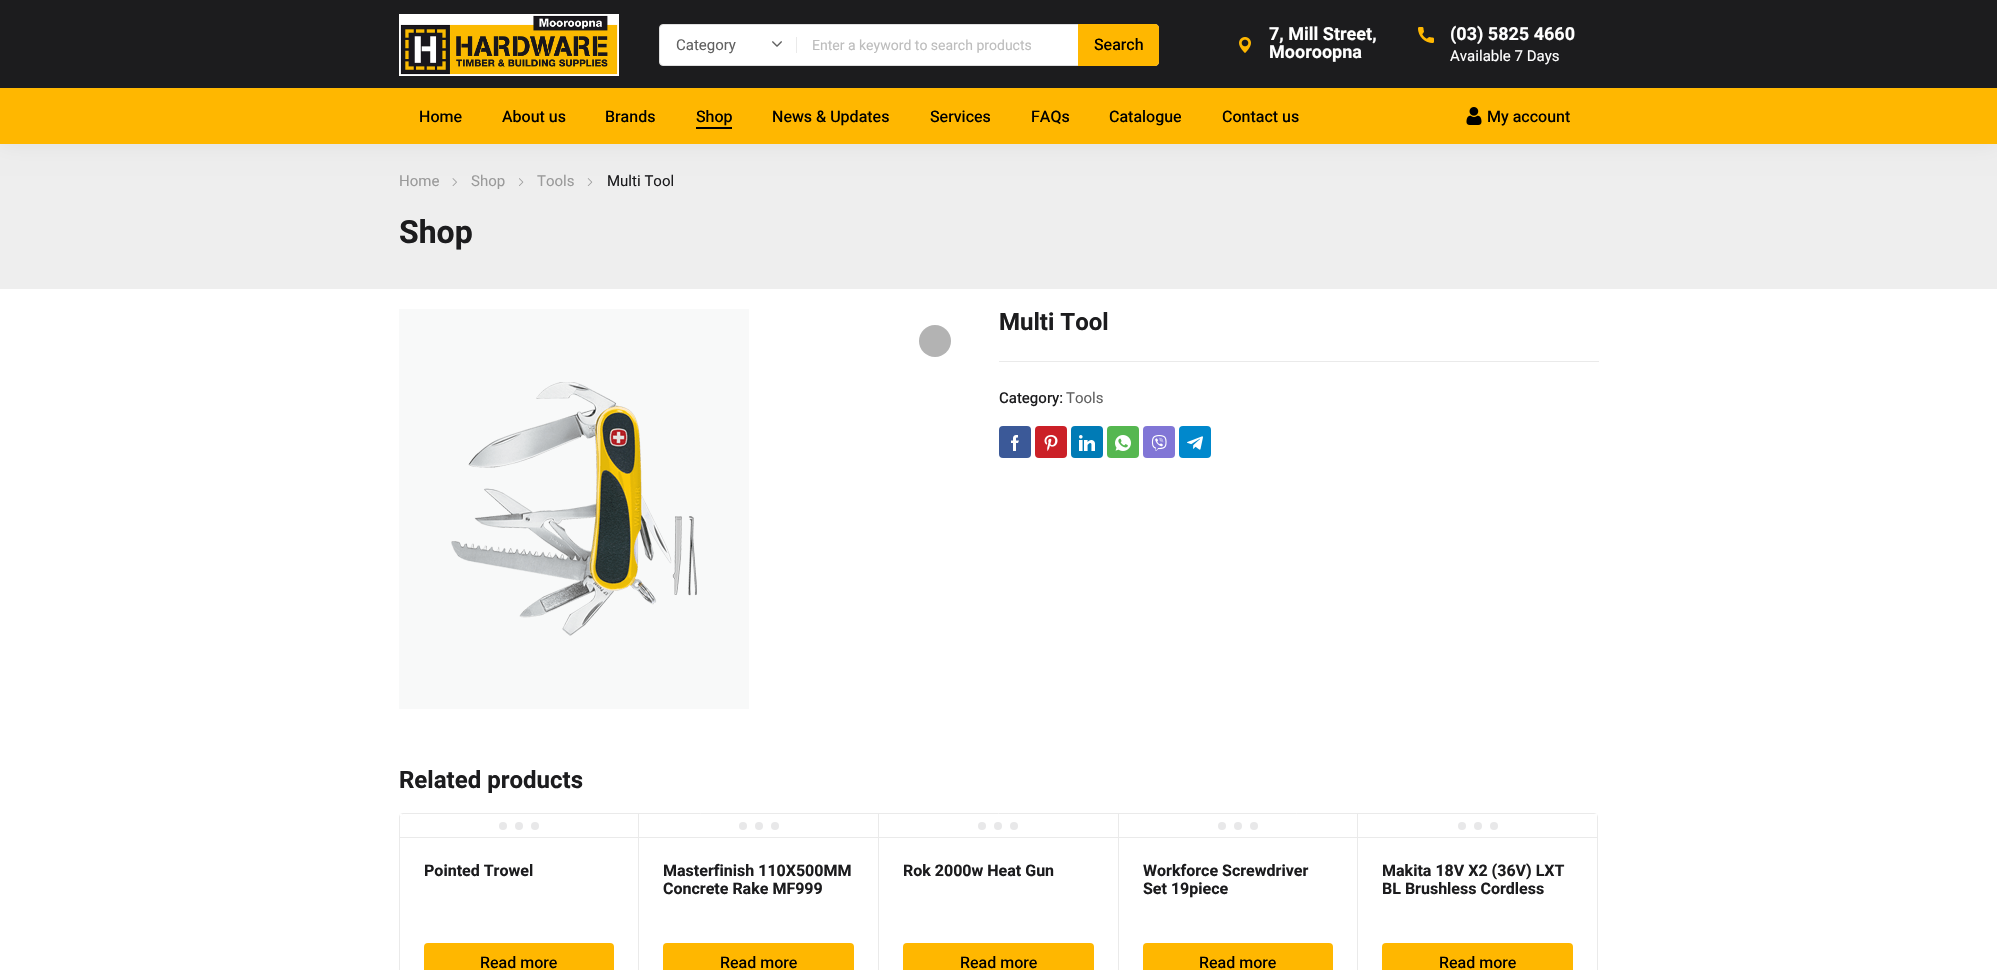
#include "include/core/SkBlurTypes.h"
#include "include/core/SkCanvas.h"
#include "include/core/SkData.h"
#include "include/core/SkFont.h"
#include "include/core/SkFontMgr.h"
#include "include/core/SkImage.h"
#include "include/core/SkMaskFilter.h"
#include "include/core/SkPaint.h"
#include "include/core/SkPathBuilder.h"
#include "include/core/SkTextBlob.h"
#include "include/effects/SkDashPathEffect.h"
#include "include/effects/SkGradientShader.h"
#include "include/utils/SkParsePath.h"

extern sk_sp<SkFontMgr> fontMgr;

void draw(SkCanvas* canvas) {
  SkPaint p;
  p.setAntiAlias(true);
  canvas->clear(SK_ColorWHITE);
  p.setColor(SkColorSetRGB(238, 238, 238));
  canvas->drawRect(SkRect::MakeLTRB(0, 144, 1997, 289), p);
  p.setColor(SkColorSetARGB(13, 0, 0, 0));
  p.setMaskFilter(SkMaskFilter::MakeBlur(kNormal_SkBlurStyle, 10));
  canvas->drawRect(SkRect::MakeLTRB(0, 2, 1997, 146), p);
  p.setMaskFilter(nullptr);
  p.setColor(SkColorSetRGB(28, 28, 30));
  canvas->drawRect(SkRect::MakeLTRB(0, 0, 1997, 88), p);
  canvas->drawImageRect(SkImages::DeferredFromEncodedData(SkData::MakeFromFileName("images/1.png")), SkRect::MakeLTRB(399, 14, 619, 76), SkSamplingOptions());
  p.setColor(SK_ColorWHITE);
  canvas->drawRoundRect(SkRect::MakeLTRB(659.5f, 24.5f, 1158.5f, 65.5f), 3.5f, 3.5f, p);
  p.setStyle(SkPaint::kStroke_Style);
  p.setStrokeWidth(1);
  p.setColor(SkColorSetRGB(224, 224, 224));
  canvas->drawRoundRect(SkRect::MakeLTRB(659.5f, 24.5f, 1158.5f, 65.5f), 3.5f, 3.5f, p);
  p.setStyle(SkPaint::kFill_Style);
  p.setColor(SkColorSetRGB(255, 183, 0));
  canvas->drawPath(SkPathBuilder().moveTo(1078, 24).lineTo(1155, 24).cubicTo(1157, 24, 1159, 26, 1159, 28).lineTo(1159, 62).cubicTo(1159, 64, 1157, 66, 1155, 66).lineTo(1078, 66).close().detach(), p);
  canvas->drawImageRect(SkImages::DeferredFromEncodedData(SkData::MakeFromFileName("images/2.png")), SkRect::MakeLTRB(772, 41, 782, 47), SkSamplingOptions());
  p.setColor(SkColorSetRGB(234, 234, 234));
  canvas->drawRect(SkRect::MakeLTRB(796, 37, 797, 53), p);
  canvas->drawImageRect(SkImages::DeferredFromEncodedData(SkData::MakeFromFileName("images/3.png")), SkRect::MakeLTRB(1239, 37, 1251, 53), SkSamplingOptions());
  canvas->drawImageRect(SkImages::DeferredFromEncodedData(SkData::MakeFromFileName("images/4.png")), SkRect::MakeLTRB(1418, 27, 1434, 43), SkSamplingOptions());
  p.setColor(SkColorSetRGB(255, 183, 0));
  canvas->drawRect(SkRect::MakeLTRB(0, 88, 1997, 144), p);
  p.setColor(SK_ColorBLACK);
  canvas->drawRect(SkRect::MakeLTRB(696, 127, 732, 129), p);
  canvas->drawImageRect(SkImages::DeferredFromEncodedData(SkData::MakeFromFileName("images/5.png")), SkRect::MakeLTRB(1466, 107, 1482, 125), SkSamplingOptions());
  canvas->drawImageRect(SkImages::DeferredFromEncodedData(SkData::MakeFromFileName("images/6.png")), SkRect::MakeLTRB(452, 178, 457, 186), SkSamplingOptions());
  canvas->drawImageRect(SkImages::DeferredFromEncodedData(SkData::MakeFromFileName("images/7.png")), SkRect::MakeLTRB(519, 178, 524, 186), SkSamplingOptions());
  canvas->drawImageRect(SkImages::DeferredFromEncodedData(SkData::MakeFromFileName("images/8.png")), SkRect::MakeLTRB(587, 178, 593, 186), SkSamplingOptions());
  canvas->drawImageRect(SkImages::DeferredFromEncodedData(SkData::MakeFromFileName("images/9.png")), SkRect::MakeLTRB(399, 309, 749, 709), SkSamplingOptions());
  p.setColor(SkColorSetRGB(179, 179, 179));
  canvas->drawCircle(935, 341, 16, p);
  p.setColor(SkColorSetRGB(234, 234, 234));
  canvas->drawRect(SkRect::MakeLTRB(999, 361, 1599, 362), p);
  p.setColor(SkColorSetRGB(59, 89, 152));
  canvas->drawRoundRect(SkRect::MakeLTRB(999, 426, 1031, 458), 4, 4, p);
  canvas->drawImageRect(SkImages::DeferredFromEncodedData(SkData::MakeFromFileName("images/10.png")), SkRect::MakeLTRB(1011, 435, 1019, 451), SkSamplingOptions());
  p.setColor(SkColorSetRGB(203, 32, 39));
  canvas->drawRoundRect(SkRect::MakeLTRB(1035, 426, 1067, 458), 4, 4, p);
  canvas->drawImageRect(SkImages::DeferredFromEncodedData(SkData::MakeFromFileName("images/11.png")), SkRect::MakeLTRB(1044, 435, 1058, 451), SkSamplingOptions());
  p.setColor(SkColorSetRGB(0, 123, 182));
  canvas->drawRoundRect(SkRect::MakeLTRB(1071, 426, 1103, 458), 4, 4, p);
  canvas->drawImageRect(SkImages::DeferredFromEncodedData(SkData::MakeFromFileName("images/12.png")), SkRect::MakeLTRB(1079, 435, 1095, 451), SkSamplingOptions());
  p.setColor(SkColorSetRGB(85, 183, 80));
  canvas->drawRoundRect(SkRect::MakeLTRB(1107, 426, 1139, 458), 4, 4, p);
  canvas->drawImageRect(SkImages::DeferredFromEncodedData(SkData::MakeFromFileName("images/13.png")), SkRect::MakeLTRB(1115, 435, 1131, 451), SkSamplingOptions());
  p.setColor(SkColorSetRGB(129, 118, 214));
  canvas->drawRoundRect(SkRect::MakeLTRB(1143, 426, 1175, 458), 4, 4, p);
  canvas->drawImageRect(SkImages::DeferredFromEncodedData(SkData::MakeFromFileName("images/14.png")), SkRect::MakeLTRB(1151, 435, 1167, 451), SkSamplingOptions());
  p.setColor(SkColorSetRGB(0, 136, 204));
  canvas->drawRoundRect(SkRect::MakeLTRB(1179, 426, 1211, 458), 4, 4, p);
  canvas->drawImageRect(SkImages::DeferredFromEncodedData(SkData::MakeFromFileName("images/15.png")), SkRect::MakeLTRB(1187, 436, 1203, 450), SkSamplingOptions());
  p.setStyle(SkPaint::kStroke_Style);
  p.setColor(SkColorSetRGB(234, 234, 234));
  canvas->drawRoundRect(SkRect::MakeLTRB(399.5f, 813.5f, 1597.5f, 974.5f), 3.5f, 3.5f, p);
  p.setStyle(SkPaint::kFill_Style);
  p.setColor(SK_ColorWHITE);
  canvas->drawRect(SkRect::MakeLTRB(400, 814, 402, 816), p);
  p.setColor(SkColorSetRGB(232, 232, 233));
  canvas->drawCircle(503, 826, 4, p);
  canvas->drawCircle(519, 826, 4, p);
  canvas->drawCircle(535, 826, 4, p);
  p.setColor(SkColorSetRGB(234, 234, 234));
  canvas->drawRect(SkRect::MakeLTRB(400, 837, 638, 838), p);
  p.setColor(SkColorSetRGB(255, 183, 0));
  canvas->drawRoundRect(SkRect::MakeLTRB(424, 943, 614, 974), 4, 4, p);
  canvas->save();
  canvas->clipRect(SkRect::MakeLTRB(400, 814, 1597, 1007));
  p.setStyle(SkPaint::kStroke_Style);
  p.setColor(SkColorSetRGB(234, 234, 234));
  canvas->drawRect(SkRect::MakeLTRB(638.5f, 813.5f, 879.5f, 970.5f), p);
  canvas->restore();
  p.setStyle(SkPaint::kFill_Style);
  p.setColor(SkColorSetRGB(232, 232, 233));
  canvas->drawCircle(743, 826, 4, p);
  canvas->drawCircle(759, 826, 4, p);
  canvas->drawCircle(775, 826, 4, p);
  p.setColor(SkColorSetRGB(234, 234, 234));
  canvas->drawRect(SkRect::MakeLTRB(639, 837, 878, 838), p);
  p.setColor(SkColorSetRGB(255, 183, 0));
  canvas->drawRoundRect(SkRect::MakeLTRB(663, 943, 854, 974), 4, 4, p);
  canvas->save();
  canvas->clipRect(SkRect::MakeLTRB(400, 814, 1597, 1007));
  p.setStyle(SkPaint::kStroke_Style);
  p.setColor(SkColorSetRGB(234, 234, 234));
  canvas->drawRect(SkRect::MakeLTRB(878.5f, 813.5f, 1119.5f, 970.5f), p);
  canvas->restore();
  p.setStyle(SkPaint::kFill_Style);
  p.setColor(SK_ColorWHITE);
  canvas->drawRect(SkRect::MakeLTRB(879, 838, 880, 970), p);
  canvas->drawRect(SkRect::MakeLTRB(879, 814, 880, 837), p);
  p.setColor(SkColorSetRGB(232, 232, 233));
  canvas->drawCircle(982, 826, 4, p);
  canvas->drawCircle(998, 826, 4, p);
  canvas->drawCircle(1014, 826, 4, p);
  p.setColor(SkColorSetRGB(234, 234, 234));
  canvas->drawRect(SkRect::MakeLTRB(879, 837, 1118, 838), p);
  p.setColor(SkColorSetRGB(255, 183, 0));
  canvas->drawRoundRect(SkRect::MakeLTRB(903, 943, 1094, 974), 4, 4, p);
  canvas->save();
  canvas->clipRect(SkRect::MakeLTRB(400, 814, 1597, 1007));
  p.setStyle(SkPaint::kStroke_Style);
  p.setColor(SkColorSetRGB(234, 234, 234));
  canvas->drawRect(SkRect::MakeLTRB(1118.5f, 813.5f, 1358.5f, 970.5f), p);
  canvas->restore();
  p.setStyle(SkPaint::kFill_Style);
  p.setColor(SK_ColorWHITE);
  canvas->drawRect(SkRect::MakeLTRB(1119, 838, 1120, 970), p);
  canvas->drawRect(SkRect::MakeLTRB(1119, 814, 1120, 837), p);
  p.setColor(SkColorSetRGB(232, 232, 233));
  canvas->drawCircle(1222, 826, 4, p);
  canvas->drawCircle(1238, 826, 4, p);
  canvas->drawCircle(1254, 826, 4, p);
  p.setColor(SkColorSetRGB(234, 234, 234));
  canvas->drawRect(SkRect::MakeLTRB(1119, 837, 1357, 838), p);
  p.setColor(SkColorSetRGB(255, 183, 0));
  canvas->drawRoundRect(SkRect::MakeLTRB(1143, 943, 1333, 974), 4, 4, p);
  canvas->save();
  canvas->clipRect(SkRect::MakeLTRB(400, 814, 1597, 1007));
  p.setStyle(SkPaint::kStroke_Style);
  p.setColor(SkColorSetRGB(234, 234, 234));
  canvas->drawRect(SkRect::MakeLTRB(1357.5f, 813.5f, 1598.5f, 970.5f), p);
  canvas->restore();
  p.setStyle(SkPaint::kFill_Style);
  p.setColor(SK_ColorWHITE);
  canvas->drawRect(SkRect::MakeLTRB(1358, 838, 1359, 970), p);
  canvas->drawRect(SkRect::MakeLTRB(1358, 814, 1597, 837), p);
  p.setColor(SkColorSetRGB(232, 232, 233));
  canvas->drawCircle(1462, 826, 4, p);
  canvas->drawCircle(1478, 826, 4, p);
  canvas->drawCircle(1494, 826, 4, p);
  p.setColor(SkColorSetRGB(234, 234, 234));
  canvas->drawRect(SkRect::MakeLTRB(1358, 837, 1597, 838), p);
  p.setColor(SkColorSetRGB(255, 183, 0));
  canvas->drawRoundRect(SkRect::MakeLTRB(1382, 943, 1573, 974), 4, 4, p);
  SkFont font1(fontMgr->matchFamilyStyle("Heebo", SkFontStyle::Normal()), 15);
  font1.setSubpixel(true);
  p.setColor(SkColorSetRGB(97, 97, 97));
  canvas->drawString("Category", 676, 50, font1, p);
  SkFont font2(fontMgr->matchFamilyStyle("Heebo", SkFontStyle::Normal()), 14);
  font2.setSubpixel(true);
  p.setColor(SkColorSetRGB(189, 189, 189));
  canvas->drawString("Enter a keyword to search products", 812, 50, font2, p);
  SkFont font3(fontMgr->matchFamilyStyle("Heebo", SkFontStyle(500, SkFontStyle::kNormal_Width, SkFontStyle::kUpright_Slant)), 16);
  font3.setSubpixel(true);
  p.setColor(SK_ColorBLACK);
  canvas->drawString("Search", 1094, 50, font3, p);
  SkFont font4(fontMgr->matchFamilyStyle("Heebo", SkFontStyle::Bold()), 18);
  font4.setSubpixel(true);
  p.setColor(SK_ColorWHITE);
  canvas->drawString("7, Mill Street,", 1269, 40, font4, p);
  canvas->drawString("Mooroopna", 1269, 58, font4, p);
  canvas->drawString("(03) 5825 4660", 1450, 40, font4, p);
  canvas->drawString("Available 7 Days", 1450, 61, font1, p);
  p.setColor(SK_ColorBLACK);
  canvas->drawString("Home", 419, 122, font3, p);
  canvas->drawString("About us", 502, 122, font3, p);
  canvas->drawString("Brands", 605, 122, font3, p);
  canvas->drawString("Shop", 696, 122, font3, p);
  canvas->drawString("News & Updates", 772, 122, font3, p);
  canvas->drawString("Services", 930, 122, font3, p);
  canvas->drawString("FAQs", 1031, 122, font3, p);
  canvas->drawString("Catalogue", 1109, 122, font3, p);
  canvas->drawString("Contact us", 1222, 122, font3, p);
  canvas->drawString("My account", 1487, 122, font3, p);
  p.setColor(SkColorSetRGB(154, 154, 154));
  canvas->drawString("Home", 399, 186, font1, p);
  canvas->drawString("Shop", 471, 186, font1, p);
  canvas->drawString("Tools", 537, 186, font1, p);
  p.setColor(SkColorSetRGB(28, 28, 30));
  canvas->drawString("Multi Tool", 607, 186, font1, p);
  SkFont font5(fontMgr->matchFamilyStyle("Heebo", SkFontStyle::Bold()), 32);
  font5.setSubpixel(true);
  canvas->drawString("Shop", 399, 243, font5, p);
  SkFont font6(fontMgr->matchFamilyStyle("Heebo", SkFontStyle::Bold()), 24);
  font6.setSubpixel(true);
  canvas->drawString("Multi Tool", 999, 330, font6, p);
  SkFont font7(fontMgr->matchFamilyStyle("Heebo", SkFontStyle(500, SkFontStyle::kNormal_Width, SkFontStyle::kUpright_Slant)), 15);
  font7.setSubpixel(true);
  canvas->drawString("Category:", 999, 403, font7, p);
  p.setColor(SkColorSetRGB(97, 97, 97));
  canvas->drawString("Tools", 1066, 403, font1, p);
  p.setColor(SkColorSetRGB(28, 28, 30));
  canvas->drawString("Related products", 399, 788, font6, p);
  SkFont font8(fontMgr->matchFamilyStyle("Heebo", SkFontStyle::Bold()), 16);
  font8.setSubpixel(true);
  canvas->drawString("Pointed Trowel", 424, 876, font8, p);
  p.setColor(SK_ColorBLACK);
  canvas->drawString("Read more", 480, 968, font3, p);
  p.setColor(SkColorSetRGB(28, 28, 30));
  canvas->drawString("Masterfinish 110X500MM", 663, 876, font8, p);
  canvas->drawString("Concrete Rake MF999", 663, 894, font8, p);
  p.setColor(SK_ColorBLACK);
  canvas->drawString("Read more", 720, 968, font3, p);
  p.setColor(SkColorSetRGB(28, 28, 30));
  canvas->drawString("Rok 2000w Heat Gun", 903, 876, font8, p);
  p.setColor(SK_ColorBLACK);
  canvas->drawString("Read more", 960, 968, font3, p);
  p.setColor(SkColorSetRGB(28, 28, 30));
  canvas->drawString("Workforce Screwdriver", 1143, 876, font8, p);
  canvas->drawString("Set 19piece", 1143, 894, font8, p);
  p.setColor(SK_ColorBLACK);
  canvas->drawString("Read more", 1199, 968, font3, p);
  p.setColor(SkColorSetRGB(28, 28, 30));
  canvas->drawString("Makita 18V X2 (36V) LXT", 1382, 876, font8, p);
  canvas->drawString("BL Brushless Cordless", 1382, 894, font8, p);
  p.setColor(SK_ColorBLACK);
  canvas->drawString("Read more", 1439, 968, font3, p);
}
